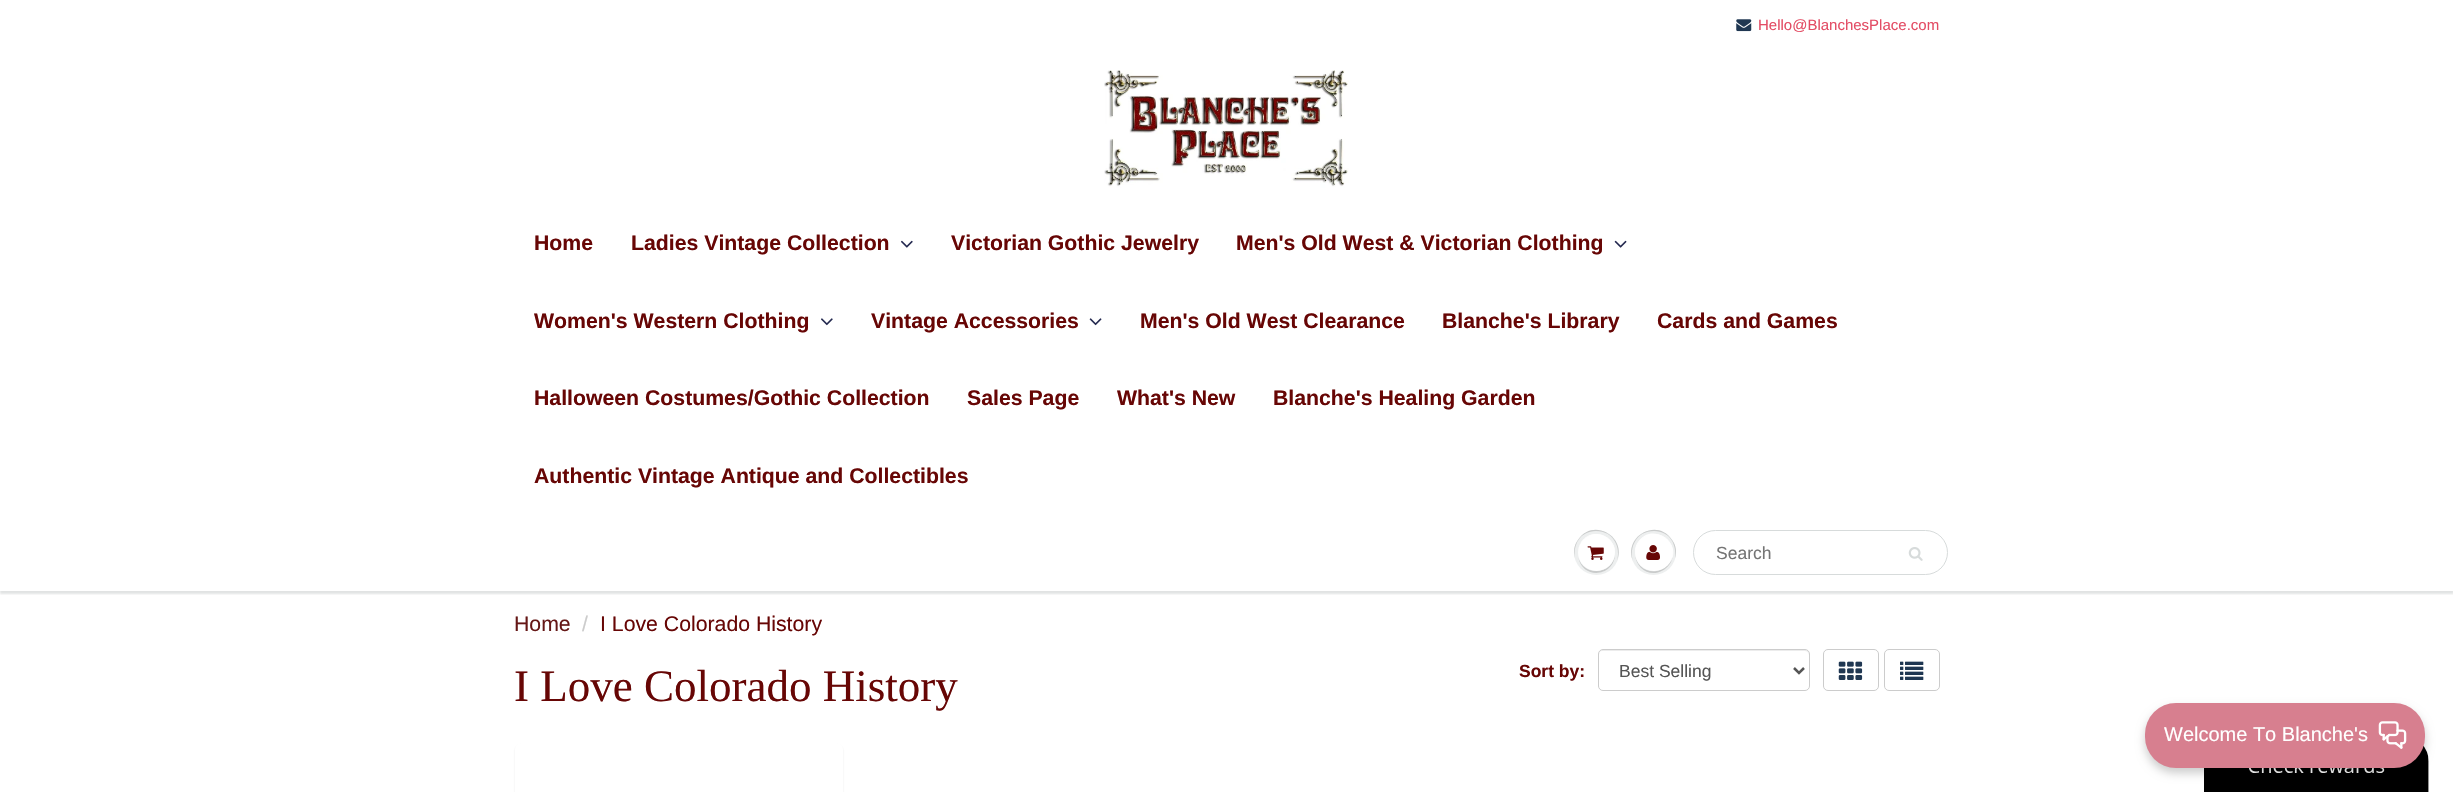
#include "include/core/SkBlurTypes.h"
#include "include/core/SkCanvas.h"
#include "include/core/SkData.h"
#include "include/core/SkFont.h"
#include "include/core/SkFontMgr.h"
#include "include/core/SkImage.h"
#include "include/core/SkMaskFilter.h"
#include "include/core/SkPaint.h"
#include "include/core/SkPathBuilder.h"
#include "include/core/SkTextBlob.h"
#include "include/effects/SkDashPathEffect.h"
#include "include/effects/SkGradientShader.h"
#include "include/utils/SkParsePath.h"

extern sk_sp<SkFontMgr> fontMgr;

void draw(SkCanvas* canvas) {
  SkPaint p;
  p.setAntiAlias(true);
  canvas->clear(SK_ColorWHITE);
  canvas->drawImageRect(SkImages::DeferredFromEncodedData(SkData::MakeFromFileName("images/1.png")), SkRect::MakeLTRB(1736, 19, 1752, 32), SkSamplingOptions());
  canvas->drawImageRect(SkImages::DeferredFromEncodedData(SkData::MakeFromFileName("images/2.png")), SkRect::MakeLTRB(1104, 70, 1349, 188), SkSamplingOptions());
  canvas->save();
  canvas->clipRect(SkRect::MakeLTRB(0, 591, 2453, 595));
  p.setColor(SkColorSetARGB(31, 11, 25, 28));
  p.setMaskFilter(SkMaskFilter::MakeBlur(kNormal_SkBlurStyle, 1));
  canvas->drawRect(SkRect::MakeLTRB(0, 205, 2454, 594), p);
  p.setMaskFilter(nullptr);
  canvas->restore();
  canvas->drawImageRect(SkImages::DeferredFromEncodedData(SkData::MakeFromFileName("images/3.png")), SkRect::MakeLTRB(901, 240, 913, 248), SkSamplingOptions());
  canvas->drawImageRect(SkImages::DeferredFromEncodedData(SkData::MakeFromFileName("images/4.png")), SkRect::MakeLTRB(1614, 240, 1627, 248), SkSamplingOptions());
  canvas->drawImageRect(SkImages::DeferredFromEncodedData(SkData::MakeFromFileName("images/5.png")), SkRect::MakeLTRB(821, 318, 833, 326), SkSamplingOptions());
  canvas->drawImageRect(SkImages::DeferredFromEncodedData(SkData::MakeFromFileName("images/6.png")), SkRect::MakeLTRB(1089, 318, 1102, 326), SkSamplingOptions());
  p.setColor(SkColorSetRGB(237, 239, 239));
  canvas->drawCircle(1596.5f, 552.5f, 22.5f, p);
  p.setColor(SkColorSetRGB(201, 203, 203));
  canvas->drawPath(SkPathBuilder().moveTo(1596, 531).cubicTo(1614, 531, 1621, 548, 1617, 561).cubicTo(1627, 537, 1593, 517, 1578, 540).cubicTo(1574, 545, 1573, 552, 1575, 558).cubicTo(1573, 545, 1580, 531, 1596, 531).close().detach(), p);
  canvas->drawPath(SkPathBuilder().moveTo(1578.5f, 558).cubicTo(1582.5f, 580, 1615.5f, 577, 1615, 553).cubicTo(1614.5f, 574, 1584.5f, 578, 1578.5f, 558).close().detach(), p);
  p.setColor(SK_ColorWHITE);
  canvas->drawCircle(1596.5f, 552.5f, 18.5f, p);
  canvas->drawPath(SkPathBuilder().moveTo(1596, 535).cubicTo(1610, 535, 1616, 546.5f, 1614.5f, 557).cubicTo(1619.5f, 537.5f, 1593, 525, 1581, 542).cubicTo(1579, 545.5f, 1578, 549, 1578, 553).cubicTo(1578, 544, 1584, 535, 1596, 535).close().detach(), p);
  canvas->drawImageRect(SkImages::DeferredFromEncodedData(SkData::MakeFromFileName("images/7.png")), SkRect::MakeLTRB(1587, 546, 1604, 560), SkSamplingOptions());
  p.setColor(SkColorSetRGB(237, 239, 239));
  canvas->drawCircle(1653.5f, 552.5f, 22.5f, p);
  p.setColor(SkColorSetRGB(201, 203, 203));
  canvas->drawPath(SkPathBuilder().moveTo(1654, 531).cubicTo(1670, 531, 1677, 545, 1675, 558).cubicTo(1677, 552, 1676, 545, 1672, 540).cubicTo(1657, 517, 1623, 537, 1633, 561).cubicTo(1629, 548, 1636, 531, 1654, 531).close().detach(), p);
  canvas->drawPath(SkPathBuilder().moveTo(1635, 553).cubicTo(1635, 558.5f, 1637, 563.5f, 1640.5f, 567.5f).cubicTo(1655, 582, 1679, 565.5f, 1671.5f, 547).cubicTo(1677, 565, 1654.5f, 579.5f, 1640.5f, 566).cubicTo(1637.5f, 562.5f, 1635, 558, 1635, 553).close().detach(), p);
  p.setColor(SK_ColorWHITE);
  canvas->drawRoundRect(SkRect::MakeLTRB(1635, 534, 1673, 571), 18.5f, 18.5f, p);
  canvas->drawPath(SkPathBuilder().moveTo(1654, 535).cubicTo(1670, 535, 1676, 552, 1670, 563).cubicTo(1684, 543, 1652, 521, 1638, 542).cubicTo(1635, 546, 1634, 552, 1636, 557).cubicTo(1634, 547, 1640, 535, 1654, 535).close().detach(), p);
  canvas->drawImageRect(SkImages::DeferredFromEncodedData(SkData::MakeFromFileName("images/8.png")), SkRect::MakeLTRB(1646, 545, 1660, 560), SkSamplingOptions());
  p.setStyle(SkPaint::kStroke_Style);
  p.setStrokeWidth(1);
  p.setColor(SkColorSetRGB(215, 219, 219));
  canvas->drawRoundRect(SkRect::MakeLTRB(1693.5f, 530.5f, 1947.5f, 574.5f), 22, 22, p);
  canvas->drawImageRect(SkImages::DeferredFromEncodedData(SkData::MakeFromFileName("images/9.png")), SkRect::MakeLTRB(1908, 547, 1923, 561), SkSamplingOptions());
  p.setStyle(SkPaint::kFill_Style);
  p.setColor(SkColorSetRGB(236, 236, 236));
  canvas->drawPath(SkPathBuilder().moveTo(1602, 651).lineTo(1805, 651).cubicTo(1807, 651, 1809, 653, 1809, 655).lineTo(1809, 654).cubicTo(1809, 652, 1807, 650, 1805, 650).lineTo(1603, 650).cubicTo(1601, 650, 1599, 652, 1599, 654).lineTo(1599, 655).cubicTo(1599, 653, 1600, 651, 1602, 651).close().detach(), p);
  p.setStyle(SkPaint::kStroke_Style);
  p.setColor(SkColorSetRGB(204, 204, 204));
  canvas->drawRoundRect(SkRect::MakeLTRB(1598.5f, 649.5f, 1809.5f, 690.5f), 4.5f, 4.5f, p);
  p.setStrokeWidth(2.5f);
  p.setColor(SkColorSetRGB(85, 85, 85));
  canvas->drawPath(SkPathBuilder().moveTo(1794, 668).lineTo(1799, 673).lineTo(1804, 668).detach(), p);
  p.setStrokeWidth(1);
  p.setColor(SkColorSetRGB(204, 204, 204));
  canvas->drawRoundRect(SkRect::MakeLTRB(1823.5f, 649.5f, 1878.5f, 690.5f), 4.5f, 4.5f, p);
  canvas->drawImageRect(SkImages::DeferredFromEncodedData(SkData::MakeFromFileName("images/10.png")), SkRect::MakeLTRB(1838, 661, 1863, 680), SkSamplingOptions());
  canvas->drawRoundRect(SkRect::MakeLTRB(1884.5f, 649.5f, 1939.5f, 690.5f), 4.5f, 4.5f, p);
  canvas->drawImageRect(SkImages::DeferredFromEncodedData(SkData::MakeFromFileName("images/11.png")), SkRect::MakeLTRB(1900, 661, 1924, 680), SkSamplingOptions());
  p.setStyle(SkPaint::kFill_Style);
  p.setColor(SkColorSetARGB(26, 11, 25, 28));
  p.setMaskFilter(SkMaskFilter::MakeBlur(kNormal_SkBlurStyle, 1));
  canvas->drawRoundRect(SkRect::MakeLTRB(515, 745, 843, 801), 6, 6, p);
  p.setMaskFilter(nullptr);
  p.setColor(SK_ColorWHITE);
  canvas->drawRoundRect(SkRect::MakeLTRB(515, 743, 843, 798), 6, 6, p);
  canvas->drawImageRect(SkImages::DeferredFromEncodedData(SkData::MakeFromFileName("images/13.png")), SkRect::MakeLTRB(2204, 745, 2429, 792), SkSamplingOptions());
  p.setColor(SkColorSetARGB(51, 0, 0, 0));
  p.setMaskFilter(SkMaskFilter::MakeBlur(kNormal_SkBlurStyle, 5));
  canvas->drawRoundRect(SkRect::MakeLTRB(2145, 708, 2425, 773), 31, 31, p);
  p.setMaskFilter(nullptr);
  p.setColor(SkColorSetRGB(215, 127, 143));
  canvas->drawRoundRect(SkRect::MakeLTRB(2145, 703, 2425, 768), 31, 31, p);
  canvas->drawImageRect(SkImages::DeferredFromEncodedData(SkData::MakeFromFileName("images/12.png")), SkRect::MakeLTRB(2378, 721, 2407, 749), SkSamplingOptions());
  SkFont font1(fontMgr->matchFamilyStyle("Liberation Sans", SkFontStyle::Normal()), 15);
  font1.setSubpixel(true);
  p.setColor(SkColorSetRGB(227, 76, 100));
  canvas->drawString("Hello@BlanchesPlace.com", 1758, 30, font1, p);
  SkFont font2(fontMgr->matchFamilyStyle("Liberation Sans", SkFontStyle::Bold()), 21.25f);
  font2.setSubpixel(true);
  p.setColor(SkColorSetRGB(103, 6, 5));
  canvas->drawString("Home", 534, 250, font2, p);
  canvas->drawString("Ladies Vintage Collection", 631, 250, font2, p);
  canvas->drawString("Victorian Gothic Jewelry", 951, 250, font2, p);
  canvas->drawString("Men's Old West & Victorian Clothing", 1236, 250, font2, p);
  canvas->drawString("Women's Western Clothing", 534, 328, font2, p);
  canvas->drawString("Vintage Accessories", 871, 328, font2, p);
  canvas->drawString("Men's Old West Clearance", 1140, 328, font2, p);
  canvas->drawString("Blanche's Library", 1442, 328, font2, p);
  canvas->drawString("Cards and Games", 1657, 328, font2, p);
  canvas->drawString("Halloween Costumes/Gothic Collection", 534, 405, font2, p);
  canvas->drawString("Sales Page", 967, 405, font2, p);
  canvas->drawString("What's New", 1117, 405, font2, p);
  canvas->drawString("Blanche's Healing Garden", 1273, 405, font2, p);
  canvas->drawString("Authentic Vintage Antique and Collectibles", 534, 483, font2, p);
  SkFont font3(fontMgr->matchFamilyStyle("Liberation Sans", SkFontStyle::Normal()), 17.5f);
  font3.setSubpixel(true);
  p.setColor(SkColorSetRGB(117, 117, 117));
  canvas->drawString("Search", 1716, 559, font3, p);
  SkFont font4(fontMgr->matchFamilyStyle("Liberation Sans", SkFontStyle::Normal()), 21.25f);
  font4.setSubpixel(true);
  p.setColor(SkColorSetRGB(101, 23, 22));
  canvas->drawString("Home", 514, 631, font4, p);
  p.setColor(SkColorSetRGB(204, 204, 204));
  canvas->drawString("/", 582, 631, font4, p);
  p.setColor(SkColorSetRGB(103, 6, 5));
  canvas->drawString("I Love Colorado History", 600, 631, font4, p);
  SkFont font5(fontMgr->matchFamilyStyle("Liberation Serif", SkFontStyle::Normal()), 45);
  font5.setSubpixel(true);
  canvas->drawString("I Love Colorado History", 514, 701, font5, p);
  SkFont font6(fontMgr->matchFamilyStyle("Liberation Sans", SkFontStyle::Bold()), 17.5f);
  font6.setSubpixel(true);
  canvas->drawString("Sort by:", 1519, 677, font6, p);
  p.setColor(SkColorSetRGB(85, 85, 85));
  canvas->drawString("Best Selling", 1619, 677, font3, p);
  SkFont font7(fontMgr->matchFamilyStyle("Liberation Sans", SkFontStyle::Normal()), 20);
  font7.setSubpixel(true);
  p.setColor(SK_ColorWHITE);
  canvas->drawString("Welcome To Blanche's", 2164, 741, font7, p);
}
